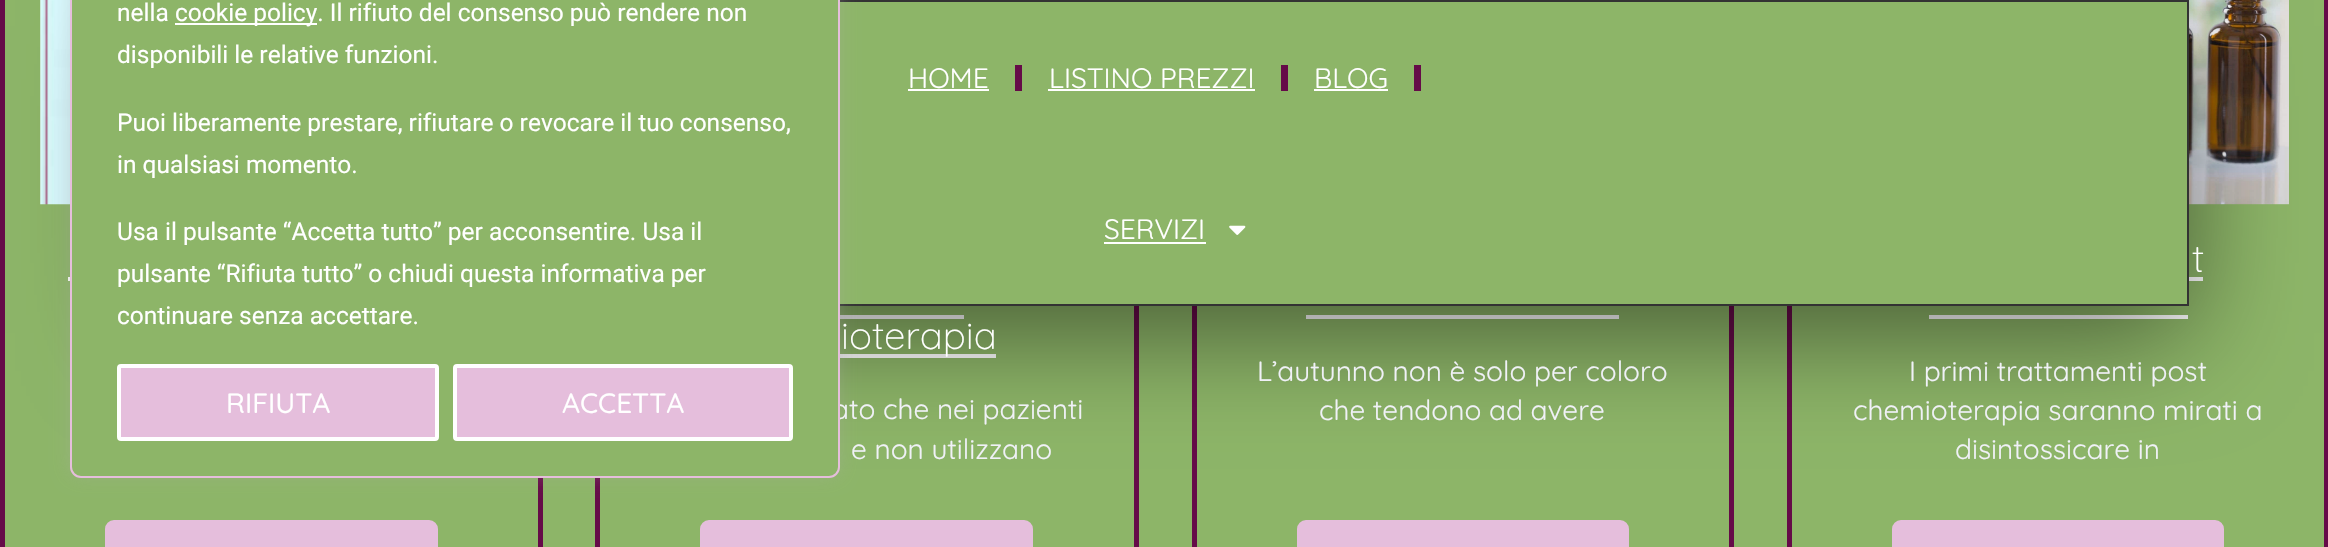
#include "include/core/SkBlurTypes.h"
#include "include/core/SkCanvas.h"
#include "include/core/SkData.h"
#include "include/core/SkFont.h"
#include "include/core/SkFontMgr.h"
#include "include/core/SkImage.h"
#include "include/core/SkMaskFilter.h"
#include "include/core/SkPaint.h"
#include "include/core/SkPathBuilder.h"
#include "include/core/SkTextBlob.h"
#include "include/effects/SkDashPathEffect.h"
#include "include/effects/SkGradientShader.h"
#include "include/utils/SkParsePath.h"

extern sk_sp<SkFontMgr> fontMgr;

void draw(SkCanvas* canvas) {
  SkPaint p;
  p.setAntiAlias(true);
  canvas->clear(SkColorSetRGB(141, 181, 104));
  p.setStyle(SkPaint::kStroke_Style);
  p.setStrokeWidth(5);
  p.setColor(SkColorSetRGB(101, 11, 72));
  canvas->drawRect(SkRect::MakeLTRB(2.5f, -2.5f, 540.5f, 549.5f), p);
  canvas->drawImageRect(SkImages::DeferredFromEncodedData(SkData::MakeFromFileName("images/2.png")), SkRect::MakeLTRB(40, 0, 70, 205), SkSamplingOptions());
  p.setStyle(SkPaint::kFill_Style);
  p.setColor(SK_ColorWHITE);
  canvas->drawRect(SkRect::MakeLTRB(68, 277, 70, 281), p);
  p.setStyle(SkPaint::kStroke_Style);
  p.setColor(SkColorSetRGB(101, 11, 72));
  canvas->drawRect(SkRect::MakeLTRB(597.5f, -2.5f, 1136.5f, 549.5f), p);
  p.setStyle(SkPaint::kFill_Style);
  p.setColor(SK_ColorWHITE);
  canvas->drawRect(SkRect::MakeLTRB(840, 315, 964, 319), p);
  canvas->drawRect(SkRect::MakeLTRB(840, 354, 996, 358), p);
  p.setStyle(SkPaint::kStroke_Style);
  p.setColor(SkColorSetRGB(101, 11, 72));
  canvas->drawRect(SkRect::MakeLTRB(1194.5f, -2.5f, 1731.5f, 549.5f), p);
  p.setStyle(SkPaint::kFill_Style);
  p.setColor(SK_ColorWHITE);
  canvas->drawRect(SkRect::MakeLTRB(1306, 315, 1619, 319), p);
  p.setStyle(SkPaint::kStroke_Style);
  p.setColor(SkColorSetRGB(101, 11, 72));
  canvas->drawRect(SkRect::MakeLTRB(1789.5f, -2.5f, 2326.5f, 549.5f), p);
  canvas->drawImageRect(SkImages::DeferredFromEncodedData(SkData::MakeFromFileName("images/3.png")), SkRect::MakeLTRB(2189, 0, 2289, 205), SkSamplingOptions());
  p.setStyle(SkPaint::kFill_Style);
  p.setColor(SK_ColorWHITE);
  canvas->drawRect(SkRect::MakeLTRB(2189, 277, 2203, 281), p);
  canvas->drawRect(SkRect::MakeLTRB(1929, 315, 2188, 319), p);
  p.setColor(SkColorSetARGB(128, 0, 0, 0));
  p.setMaskFilter(SkMaskFilter::MakeBlur(kNormal_SkBlurStyle, 57));
  canvas->drawRect(SkRect::MakeLTRB(140, 26, 2189, 333), p);
  p.setMaskFilter(nullptr);
  p.setColor(SkColorSetRGB(141, 181, 104));
  canvas->drawRect(SkRect::MakeLTRB(840, 2, 2187, 304), p);
  p.setStyle(SkPaint::kStroke_Style);
  p.setStrokeWidth(2);
  p.setColor(SkColorSetRGB(51, 51, 51));
  canvas->drawRect(SkRect::MakeLTRB(141, 1, 2188, 305), p);
  p.setStyle(SkPaint::kFill_Style);
  p.setColor(SkColorSetARGB(77, 172, 171, 171));
  p.setMaskFilter(SkMaskFilter::MakeBlur(kNormal_SkBlurStyle, 9));
  canvas->drawRoundRect(SkRect::MakeLTRB(70, -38, 840, 476), 11, 11, p);
  p.setMaskFilter(nullptr);
  p.setColor(SK_ColorWHITE);
  canvas->drawRect(SkRect::MakeLTRB(908, 89, 989, 91), p);
  p.setColor(SkColorSetRGB(101, 11, 72));
  canvas->drawRect(SkRect::MakeLTRB(1015, 65, 1022, 91), p);
  p.setColor(SK_ColorWHITE);
  canvas->drawRect(SkRect::MakeLTRB(1048, 89, 1255, 91), p);
  p.setColor(SkColorSetRGB(101, 11, 72));
  canvas->drawRect(SkRect::MakeLTRB(1281, 65, 1288, 91), p);
  p.setColor(SK_ColorWHITE);
  canvas->drawRect(SkRect::MakeLTRB(1314, 89, 1388, 91), p);
  p.setColor(SkColorSetRGB(101, 11, 72));
  canvas->drawRect(SkRect::MakeLTRB(1414, 65, 1421, 91), p);
  p.setColor(SK_ColorWHITE);
  canvas->drawRect(SkRect::MakeLTRB(1104, 242, 1206, 244), p);
  canvas->drawImageRect(SkImages::DeferredFromEncodedData(SkData::MakeFromFileName("images/1.png")), SkRect::MakeLTRB(1229, 225, 1246, 235), SkSamplingOptions());
  p.setColor(SkColorSetRGB(229, 190, 220));
  canvas->drawRoundRect(SkRect::MakeLTRB(107, 522, 436, 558), 7, 7, p);
  p.setStyle(SkPaint::kStroke_Style);
  p.setStrokeWidth(4);
  canvas->drawRoundRect(SkRect::MakeLTRB(107, 522, 436, 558), 7, 7, p);
  p.setStyle(SkPaint::kFill_Style);
  canvas->drawRoundRect(SkRect::MakeLTRB(702, 522, 1031, 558), 7, 7, p);
  p.setStyle(SkPaint::kStroke_Style);
  canvas->drawRoundRect(SkRect::MakeLTRB(702, 522, 1031, 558), 7, 7, p);
  p.setStyle(SkPaint::kFill_Style);
  canvas->drawRoundRect(SkRect::MakeLTRB(1299, 522, 1627, 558), 7, 7, p);
  p.setStyle(SkPaint::kStroke_Style);
  canvas->drawRoundRect(SkRect::MakeLTRB(1299, 522, 1627, 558), 7, 7, p);
  p.setStyle(SkPaint::kFill_Style);
  canvas->drawRoundRect(SkRect::MakeLTRB(1894, 522, 2222, 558), 7, 7, p);
  p.setStyle(SkPaint::kStroke_Style);
  canvas->drawRoundRect(SkRect::MakeLTRB(1894, 522, 2222, 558), 7, 7, p);
  SkFont font1(fontMgr->matchFamilyStyle("Quicksand", SkFontStyle::Normal()), 28);
  font1.setSubpixel(true);
  p.setStyle(SkPaint::kFill_Style);
  p.setColor(SK_ColorWHITE);
  canvas->drawString("HOME", 908, 88, font1, p);
  canvas->drawString("LISTINO PREZZI", 1049, 88, font1, p);
  canvas->drawString("BLOG", 1314, 88, font1, p);
  canvas->drawString("SERVIZI", 1104, 239, font1, p);
  SkFont font2(fontMgr->matchFamilyStyle("Quicksand", SkFontStyle(300, SkFontStyle::kNormal_Width, SkFontStyle::kUpright_Slant)), 38.5f);
  font2.setSubpixel(true);
  canvas->drawString("ioterapia", 841, 349, font2, p);
  p.setColor(SkColorSetRGB(240, 241, 247));
  canvas->drawString("ato che nei pazienti", 832, 419, font1, p);
  p.setColor(SkColorSetRGB(141, 181, 104));
  canvas->drawRoundRect(SkRect::MakeLTRB(71, -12, 839, 477), 10, 10, p);
  p.setStyle(SkPaint::kStroke_Style);
  p.setStrokeWidth(2);
  p.setColor(SkColorSetRGB(229, 190, 220));
  canvas->drawRoundRect(SkRect::MakeLTRB(71, -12, 839, 477), 10, 10, p);
  p.setStyle(SkPaint::kFill_Style);
  canvas->drawRoundRect(SkRect::MakeLTRB(455, 366, 791, 439), 2, 2, p);
  p.setStyle(SkPaint::kStroke_Style);
  p.setStrokeWidth(4);
  p.setColor(SK_ColorWHITE);
  canvas->drawRoundRect(SkRect::MakeLTRB(455, 366, 791, 439), 2, 2, p);
  SkFont font3(fontMgr->matchFamilyStyle("Quicksand", SkFontStyle(500, SkFontStyle::kNormal_Width, SkFontStyle::kUpright_Slant)), 28);
  font3.setSubpixel(true);
  p.setStyle(SkPaint::kFill_Style);
  canvas->drawString("ACCETTA", 562, 413, font3, p);
  p.setColor(SkColorSetRGB(229, 190, 220));
  canvas->drawRoundRect(SkRect::MakeLTRB(119, 366, 437, 439), 2, 2, p);
  p.setStyle(SkPaint::kStroke_Style);
  p.setColor(SK_ColorWHITE);
  canvas->drawRoundRect(SkRect::MakeLTRB(119, 366, 437, 439), 2, 2, p);
  p.setStyle(SkPaint::kFill_Style);
  canvas->drawString("RIFIUTA", 226, 413, font3, p);
  SkFont font4(fontMgr->matchFamilyStyle("Roboto", SkFontStyle::Normal()), 24.5f);
  font4.setSubpixel(true);
  canvas->drawString("continuare senza accettare.", 117, 324, font4, p);
  canvas->drawString("pulsante “Rifiuta tutto” o chiudi questa informativa per", 117, 282, font4, p);
  canvas->drawString("Usa il pulsante “Accetta tutto” per acconsentire. Usa il", 117, 240, font4, p);
  canvas->drawString("in qualsiasi momento.", 117, 173, font4, p);
  canvas->drawString("Puoi liberamente prestare, rifiutare o revocare il tuo consenso,", 117, 131, font4, p);
  canvas->drawString("disponibili le relative funzioni.", 117, 63, font4, p);
  canvas->drawRect(SkRect::MakeLTRB(175, 23, 317, 25), p);
  canvas->drawString("cookie policy. Il rifiuto del consenso può rendere non", 175, 21, font4, p);
  canvas->drawString("nella", 117, 21, font4, p);
  p.setColor(SkColorSetRGB(240, 241, 247));
  canvas->drawString("e non utilizzano", 851, 459, font1, p);
  canvas->drawString("L’autunno non è solo per coloro", 1257, 381, font1, p);
  canvas->drawString("che tendono ad avere", 1319, 420, font1, p);
  p.setColor(SK_ColorWHITE);
  canvas->drawString("t", 2192, 272, font2, p);
  p.setColor(SkColorSetRGB(240, 241, 247));
  canvas->drawString("I primi trattamenti post", 1909, 381, font1, p);
  canvas->drawString("chemioterapia saranno mirati a", 1853, 420, font1, p);
  canvas->drawString("disintossicare in", 1955, 459, font1, p);
}
